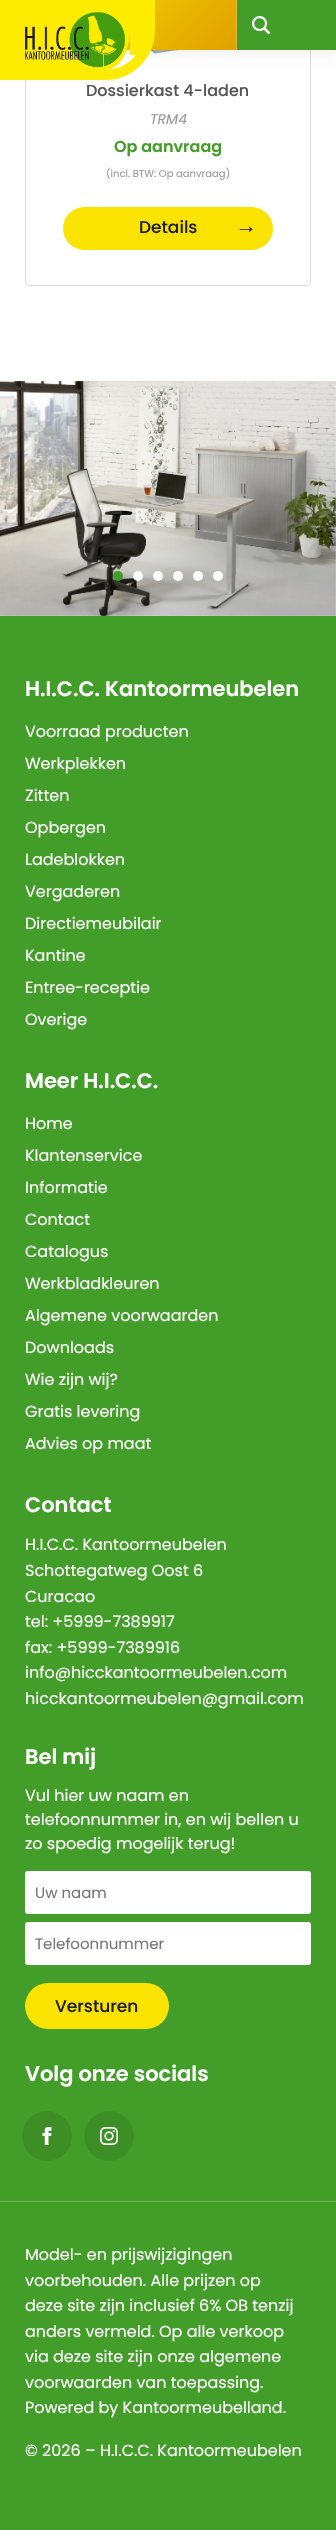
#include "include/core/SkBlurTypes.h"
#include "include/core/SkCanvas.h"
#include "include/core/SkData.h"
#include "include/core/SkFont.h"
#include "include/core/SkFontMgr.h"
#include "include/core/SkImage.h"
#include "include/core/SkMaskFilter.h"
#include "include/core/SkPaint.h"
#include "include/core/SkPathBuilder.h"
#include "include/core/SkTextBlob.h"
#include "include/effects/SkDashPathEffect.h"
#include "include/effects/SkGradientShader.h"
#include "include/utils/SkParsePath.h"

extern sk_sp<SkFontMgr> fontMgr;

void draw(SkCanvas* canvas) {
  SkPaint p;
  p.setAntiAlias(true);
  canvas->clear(SK_ColorWHITE);
  p.setStyle(SkPaint::kStroke_Style);
  p.setStrokeWidth(1);
  p.setColor(SkColorSetRGB(221, 221, 221));
  canvas->drawRoundRect(SkRect::MakeLTRB(25.5f, -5.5f, 310.5f, 285.5f), 4.5f, 4.5f, p);
  canvas->drawImageRect(SkImages::DeferredFromEncodedData(SkData::MakeFromFileName("images/3.png")), SkRect::MakeLTRB(125, 50, 212, 54), SkSamplingOptions());
  p.setStyle(SkPaint::kFill_Style);
  p.setColor(SkColorSetARGB(13, 0, 0, 0));
  p.setMaskFilter(SkMaskFilter::MakeBlur(kNormal_SkBlurStyle, 5));
  canvas->drawRect(SkRect::MakeLTRB(0, 5, 336, 55), p);
  p.setMaskFilter(nullptr);
  {
    const SkColor colors[] = {SkColorSetRGB(254, 237, 1), SkColorSetRGB(215, 138, 0)};
    const float stops[] = {0, 1};
    const SkPoint ends[] = {{59, -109}, {277, 109}};
    p.setShader(SkGradientShader::MakeLinear(ends, colors, stops, 2, SkTileMode::kClamp));
    p.setAlpha(255);
  }
  canvas->drawRect(SkRect::MakeLTRB(126, 0, 236, 50), p);
  p.setShader(nullptr);
  p.setColor(SkColorSetRGB(253, 236, 0));
  canvas->drawPath(SkPathBuilder().moveTo(25, 10).lineTo(130, 10).lineTo(130, 30).cubicTo(130, 52, 119, 70, 105, 70).lineTo(25, 70).close().detach(), p);
  p.setStyle(SkPaint::kStroke_Style);
  p.setStrokeWidth(10);
  canvas->drawPath(SkPathBuilder().moveTo(5, 5).lineTo(150, 5).lineTo(150, 30).cubicTo(150, 55, 130, 75, 105, 75).lineTo(5, 75).close().detach(), p);
  p.setStyle(SkPaint::kFill_Style);
  canvas->drawRect(SkRect::MakeLTRB(130, 10, 145, 55), p);
  canvas->drawRect(SkRect::MakeLTRB(10, 10, 25, 70), p);
  canvas->drawImageRect(SkImages::DeferredFromEncodedData(SkData::MakeFromFileName("images/1.png")), SkRect::MakeLTRB(25, 12, 125, 68), SkSamplingOptions());
  p.setColor(SkColorSetRGB(67, 158, 41));
  canvas->drawRect(SkRect::MakeLTRB(237, 0, 336, 50), p);
  canvas->drawImageRect(SkImages::DeferredFromEncodedData(SkData::MakeFromFileName("images/2.png")), SkRect::MakeLTRB(252, 16, 271, 34), SkSamplingOptions());
  {
    const SkColor colors[] = {SkColorSetRGB(254, 242, 65), SkColorSetRGB(225, 167, 64)};
    const float stops[] = {0, 1};
    const SkPoint ends[] = {{59, -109}, {277, 109}};
    p.setShader(SkGradientShader::MakeLinear(ends, colors, stops, 2, SkTileMode::kClamp));
    p.setAlpha(255);
  }
  canvas->drawRect(SkRect::MakeLTRB(236, 0, 237, 50), p);
  p.setShader(nullptr);
  p.setColor(SkColorSetRGB(250, 227, 1));
  canvas->drawRoundRect(SkRect::MakeLTRB(63, 207, 273, 250), 21.5f, 21.5f, p);
  p.setColor(SkColorSetRGB(239, 239, 239));
  canvas->drawRect(SkRect::MakeLTRB(0, 381, 336, 616), p);
  canvas->drawImageRect(SkImages::DeferredFromEncodedData(SkData::MakeFromFileName("images/4.png")), SkRect::MakeLTRB(0, 381, 336, 616), SkSamplingOptions());
  p.setColor(SkColorSetRGB(67, 158, 41));
  canvas->drawCircle(118, 576, 5, p);
  p.setColor(SK_ColorWHITE);
  canvas->drawCircle(138, 576, 5, p);
  canvas->drawCircle(158, 576, 5, p);
  canvas->drawCircle(178, 576, 5, p);
  canvas->drawCircle(198, 576, 5, p);
  canvas->drawCircle(218, 576, 5, p);
  p.setColor(SkColorSetRGB(67, 158, 41));
  canvas->drawRect(SkRect::MakeLTRB(0, 616, 336, 2530), p);
  p.setColor(SK_ColorWHITE);
  canvas->drawRoundRect(SkRect::MakeLTRB(25, 1871, 311, 1914), 3, 3, p);
  canvas->drawRoundRect(SkRect::MakeLTRB(25, 1922, 311, 1965), 3, 3, p);
  p.setColor(SkColorSetRGB(250, 227, 1));
  canvas->drawRoundRect(SkRect::MakeLTRB(25, 1983, 169, 2029), 23, 23, p);
  p.setColor(SkColorSetRGB(60, 142, 37));
  canvas->drawCircle(47, 2136, 25, p);
  canvas->drawImageRect(SkImages::DeferredFromEncodedData(SkData::MakeFromFileName("images/5.png")), SkRect::MakeLTRB(42, 2127, 52, 2145), SkSamplingOptions());
  canvas->drawCircle(109, 2136, 25, p);
  canvas->drawImageRect(SkImages::DeferredFromEncodedData(SkData::MakeFromFileName("images/6.png")), SkRect::MakeLTRB(100, 2127, 118, 2145), SkSamplingOptions());
  p.setColor(SkColorSetRGB(114, 182, 95));
  canvas->drawRect(SkRect::MakeLTRB(0, 2201, 336, 2202), p);
  SkFont font1(fontMgr->matchFamilyStyle("Poppins", SkFontStyle(500, SkFontStyle::kNormal_Width, SkFontStyle::kUpright_Slant)), 16);
  font1.setSubpixel(true);
  p.setColor(SkColorSetRGB(85, 85, 85));
  canvas->drawString("Dossierkast 4-laden", 86, 96, font1, p);
  SkFont font2(fontMgr->matchFamilyStyle("Poppins", SkFontStyle::Italic()), 14);
  font2.setSubpixel(true);
  p.setColor(SkColorSetRGB(153, 153, 153));
  canvas->drawString("TRM4", 150, 124, font2, p);
  SkFont font3(fontMgr->matchFamilyStyle("Poppins", SkFontStyle(600, SkFontStyle::kNormal_Width, SkFontStyle::kUpright_Slant)), 16);
  font3.setSubpixel(true);
  p.setColor(SkColorSetRGB(67, 158, 41));
  canvas->drawString("Op aanvraag", 114, 152, font3, p);
  SkFont font4(fontMgr->matchFamilyStyle("Poppins", SkFontStyle::Normal()), 10);
  font4.setSubpixel(true);
  p.setColor(SkColorSetRGB(153, 153, 153));
  canvas->drawString("(incl. BTW: Op aanvraag)", 106, 177, font4, p);
  SkFont font5(fontMgr->matchFamilyStyle("Poppins", SkFontStyle(500, SkFontStyle::kNormal_Width, SkFontStyle::kUpright_Slant)), 17);
  font5.setSubpixel(true);
  p.setColor(SkColorSetRGB(29, 30, 28));
  canvas->drawString("Details", 139, 233, font5, p);
  SkFont font6(fontMgr->matchFamilyStyle("Liberation Sans", SkFontStyle::Normal()), 22);
  font6.setSubpixel(true);
  canvas->drawString("→", 235, 233, font6, p);
  SkFont font7(fontMgr->matchFamilyStyle("Poppins", SkFontStyle(600, SkFontStyle::kNormal_Width, SkFontStyle::kUpright_Slant)), 21);
  font7.setSubpixel(true);
  p.setColor(SK_ColorWHITE);
  canvas->drawString("H.I.C.C. Kantoormeubelen", 25, 696, font7, p);
  SkFont font8(fontMgr->matchFamilyStyle("Poppins", SkFontStyle::Normal()), 16);
  font8.setSubpixel(true);
  canvas->drawString("Voorraad producten", 25, 737, font8, p);
  canvas->drawString("Werkplekken", 25, 769, font8, p);
  canvas->drawString("Zitten", 25, 801, font8, p);
  canvas->drawString("Opbergen", 25, 833, font8, p);
  canvas->drawString("Ladeblokken", 25, 865, font8, p);
  canvas->drawString("Vergaderen", 25, 897, font8, p);
  canvas->drawString("Directiemeubilair", 25, 929, font8, p);
  canvas->drawString("Kantine", 25, 961, font8, p);
  canvas->drawString("Entree-receptie", 25, 993, font8, p);
  canvas->drawString("Overige", 25, 1025, font8, p);
  canvas->drawString("Meer H.I.C.C.", 25, 1088, font7, p);
  canvas->drawString("Home", 25, 1129, font8, p);
  canvas->drawString("Klantenservice", 25, 1161, font8, p);
  canvas->drawString("Informatie", 25, 1193, font8, p);
  canvas->drawString("Contact", 25, 1225, font8, p);
  canvas->drawString("Catalogus", 25, 1257, font8, p);
  canvas->drawString("Werkbladkleuren", 25, 1289, font8, p);
  canvas->drawString("Algemene voorwaarden", 25, 1321, font8, p);
  canvas->drawString("Downloads", 25, 1353, font8, p);
  canvas->drawString("Wie zijn wij?", 25, 1385, font8, p);
  canvas->drawString("Gratis levering", 25, 1417, font8, p);
  canvas->drawString("Advies op maat", 25, 1449, font8, p);
  canvas->drawString("Contact", 25, 1512, font7, p);
  canvas->drawString("H.I.C.C. Kantoormeubelen", 25, 1550, font8, p);
  canvas->drawString("Schottegatweg Oost 6", 25, 1576, font8, p);
  canvas->drawString("Curacao", 25, 1602, font8, p);
  canvas->drawString("tel: +5999-7389917", 25, 1627, font8, p);
  canvas->drawString("fax: +5999-7389916", 25, 1653, font8, p);
  canvas->drawString("info@hicckantoormeubelen.com", 25, 1678, font8, p);
  canvas->drawString("hicckantoormeubelen@gmail.com", 25, 1704, font8, p);
  canvas->drawString("Bel mij", 25, 1764, font7, p);
  canvas->drawString("Vul hier uw naam en", 25, 1801, font8, p);
  canvas->drawString("telefoonnummer in, en wij bellen u", 25, 1825, font8, p);
  canvas->drawString("zo spoedig mogelijk terug!", 25, 1849, font8, p);
  SkFont font9(fontMgr->matchFamilyStyle("Poppins", SkFontStyle::Normal()), 15);
  font9.setSubpixel(true);
  p.setColor(SkColorSetRGB(119, 119, 119));
  canvas->drawString("Uw naam", 35, 1898, font9, p);
  canvas->drawString("Telefoonnummer", 35, 1949, font9, p);
  p.setColor(SkColorSetRGB(29, 30, 28));
  canvas->drawString("Versturen", 55, 2012, font5, p);
  p.setColor(SK_ColorWHITE);
  canvas->drawString("Volg onze socials", 25, 2081, font7, p);
  canvas->drawString("Model- en prijswijzigingen", 25, 2260, font8, p);
  canvas->drawString("voorbehouden. Alle prijzen op", 25, 2286, font8, p);
  canvas->drawString("deze site zijn inclusief 6% OB tenzij", 25, 2311, font8, p);
  canvas->drawString("anders vermeld. Op alle verkoop", 25, 2337, font8, p);
  canvas->drawString("via deze site zijn onze algemene", 25, 2362, font8, p);
  canvas->drawString("voorwaarden van toepassing.", 25, 2388, font8, p);
  canvas->drawString("Powered by Kantoormeubelland.", 25, 2413, font8, p);
  canvas->drawString("© 2026 – H.I.C.C. Kantoormeubelen", 25, 2456, font8, p);
}
